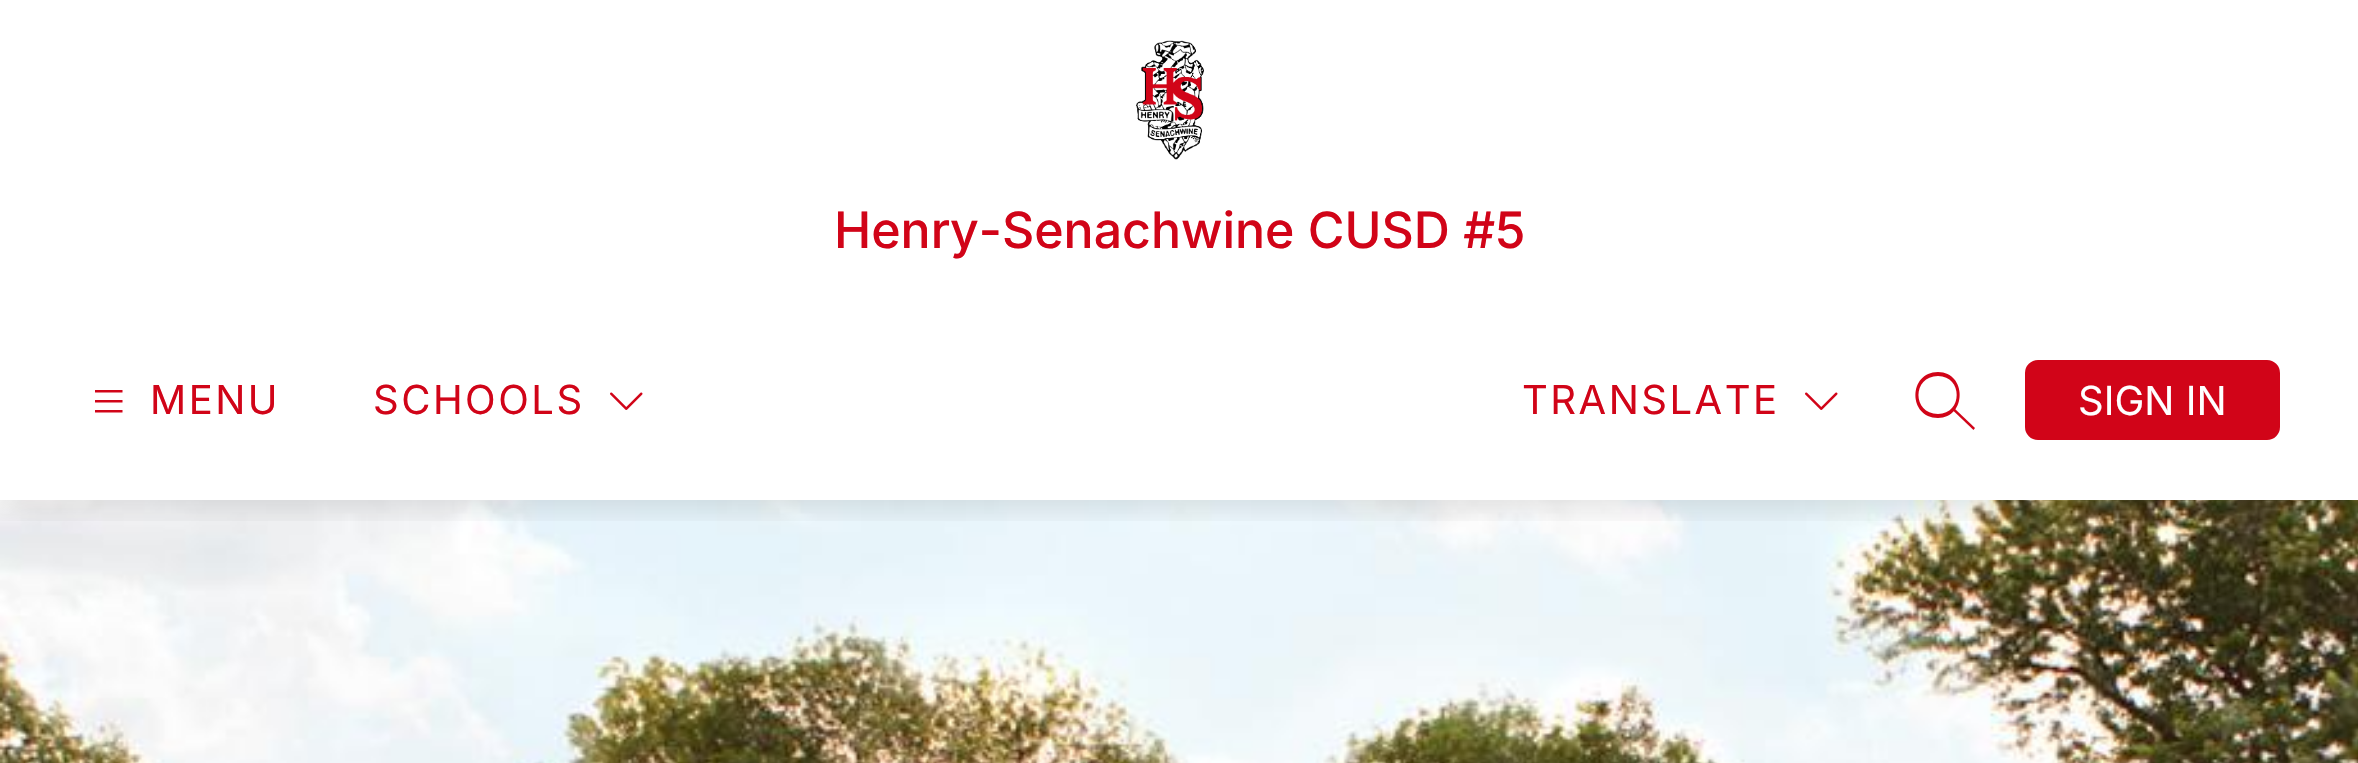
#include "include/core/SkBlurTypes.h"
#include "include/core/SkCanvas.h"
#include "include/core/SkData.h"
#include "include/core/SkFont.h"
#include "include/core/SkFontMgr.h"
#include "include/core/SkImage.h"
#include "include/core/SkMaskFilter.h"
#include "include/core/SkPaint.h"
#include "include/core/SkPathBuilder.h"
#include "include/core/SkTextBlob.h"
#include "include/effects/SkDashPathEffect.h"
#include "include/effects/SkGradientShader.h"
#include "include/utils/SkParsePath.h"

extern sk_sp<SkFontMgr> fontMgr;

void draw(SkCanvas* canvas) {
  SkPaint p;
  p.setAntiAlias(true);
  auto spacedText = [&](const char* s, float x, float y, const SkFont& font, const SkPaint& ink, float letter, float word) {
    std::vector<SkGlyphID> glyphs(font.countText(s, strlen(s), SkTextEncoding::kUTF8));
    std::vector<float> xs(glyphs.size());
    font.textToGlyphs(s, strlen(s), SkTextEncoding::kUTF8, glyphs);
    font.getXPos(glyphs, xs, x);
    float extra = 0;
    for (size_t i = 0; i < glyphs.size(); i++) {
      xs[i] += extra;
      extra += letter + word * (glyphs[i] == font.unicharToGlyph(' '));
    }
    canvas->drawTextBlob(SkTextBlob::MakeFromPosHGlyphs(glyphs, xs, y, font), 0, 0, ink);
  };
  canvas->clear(SK_ColorWHITE);
  canvas->drawImageRect(SkImages::DeferredFromEncodedData(SkData::MakeFromFileName("images/4.png")), SkRect::MakeLTRB(0, 500, 2358, 763), SkSamplingOptions());
  canvas->save();
  canvas->clipRect(SkRect::MakeLTRB(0, 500, 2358, 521));
  p.setColor(SkColorSetARGB(26, 0, 0, 0));
  p.setMaskFilter(SkMaskFilter::MakeBlur(kNormal_SkBlurStyle, 12.5f));
  canvas->drawRect(SkRect::MakeLTRB(0, 10, 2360, 510), p);
  p.setMaskFilter(nullptr);
  canvas->restore();
  canvas->drawImageRect(SkImages::DeferredFromEncodedData(SkData::MakeFromFileName("images/1.png")), SkRect::MakeLTRB(1136, 40, 1204, 160), SkSamplingOptions());
  canvas->drawImageRect(SkImages::DeferredFromEncodedData(SkData::MakeFromFileName("images/2.png")), SkRect::MakeLTRB(95, 390, 123, 413), SkSamplingOptions());
  canvas->drawImageRect(SkImages::DeferredFromEncodedData(SkData::MakeFromFileName("images/3.png")), SkRect::MakeLTRB(610, 392, 643, 410), SkSamplingOptions());
  canvas->drawImageRect(SkImages::DeferredFromEncodedData(SkData::MakeFromFileName("images/3.png")), SkRect::MakeLTRB(1805, 392, 1838, 410), SkSamplingOptions());
  p.setColor(SkColorSetRGB(209, 4, 24));
  canvas->drawPath(SkPathBuilder(SkPathFillType::kEvenOdd).moveTo(1938, 414).cubicTo(1963, 414, 1963, 376, 1938, 376).cubicTo(1912, 376, 1912, 414, 1938, 414).close().moveTo(1938, 418).cubicTo(1967, 418, 1967, 372, 1938, 372).cubicTo(1908, 372, 1908, 418, 1938, 418).close().detach(), p);
  canvas->drawPath(SkPathBuilder(SkPathFillType::kEvenOdd).moveTo(1973.5f, 430).lineTo(1953, 410.5f).lineTo(1954.5f, 408.5f).lineTo(1975, 428).close().detach(), p);
  canvas->drawRoundRect(SkRect::MakeLTRB(2026.5f, 361.5f, 2278.5f, 438.5f), 11.5f, 11.5f, p);
  p.setStyle(SkPaint::kStroke_Style);
  p.setStrokeWidth(3);
  canvas->drawRoundRect(SkRect::MakeLTRB(2026.5f, 361.5f, 2278.5f, 438.5f), 11.5f, 11.5f, p);
  SkFont font1(fontMgr->matchFamilyStyle("Inter", SkFontStyle(500, SkFontStyle::kNormal_Width, SkFontStyle::kUpright_Slant)), 50);
  font1.setSubpixel(true);
  p.setStyle(SkPaint::kFill_Style);
  canvas->drawString("Henry-Senachwine CUSD #5", 834, 248, font1, p);
  SkFont font2(fontMgr->matchFamilyStyle("Inter", SkFontStyle::Normal()), 40);
  font2.setSubpixel(true);
  spacedText("MENU", 150, 414, font2, p, 2.5f, 0);
  spacedText("SCHOOLS", 373, 414, font2, p, 2.5f, 0);
  spacedText("TRANSLATE", 1522, 414, font2, p, 2.5f, 0);
  p.setColor(SK_ColorWHITE);
  canvas->drawString("SIGN IN", 2078, 415, font2, p);
}
